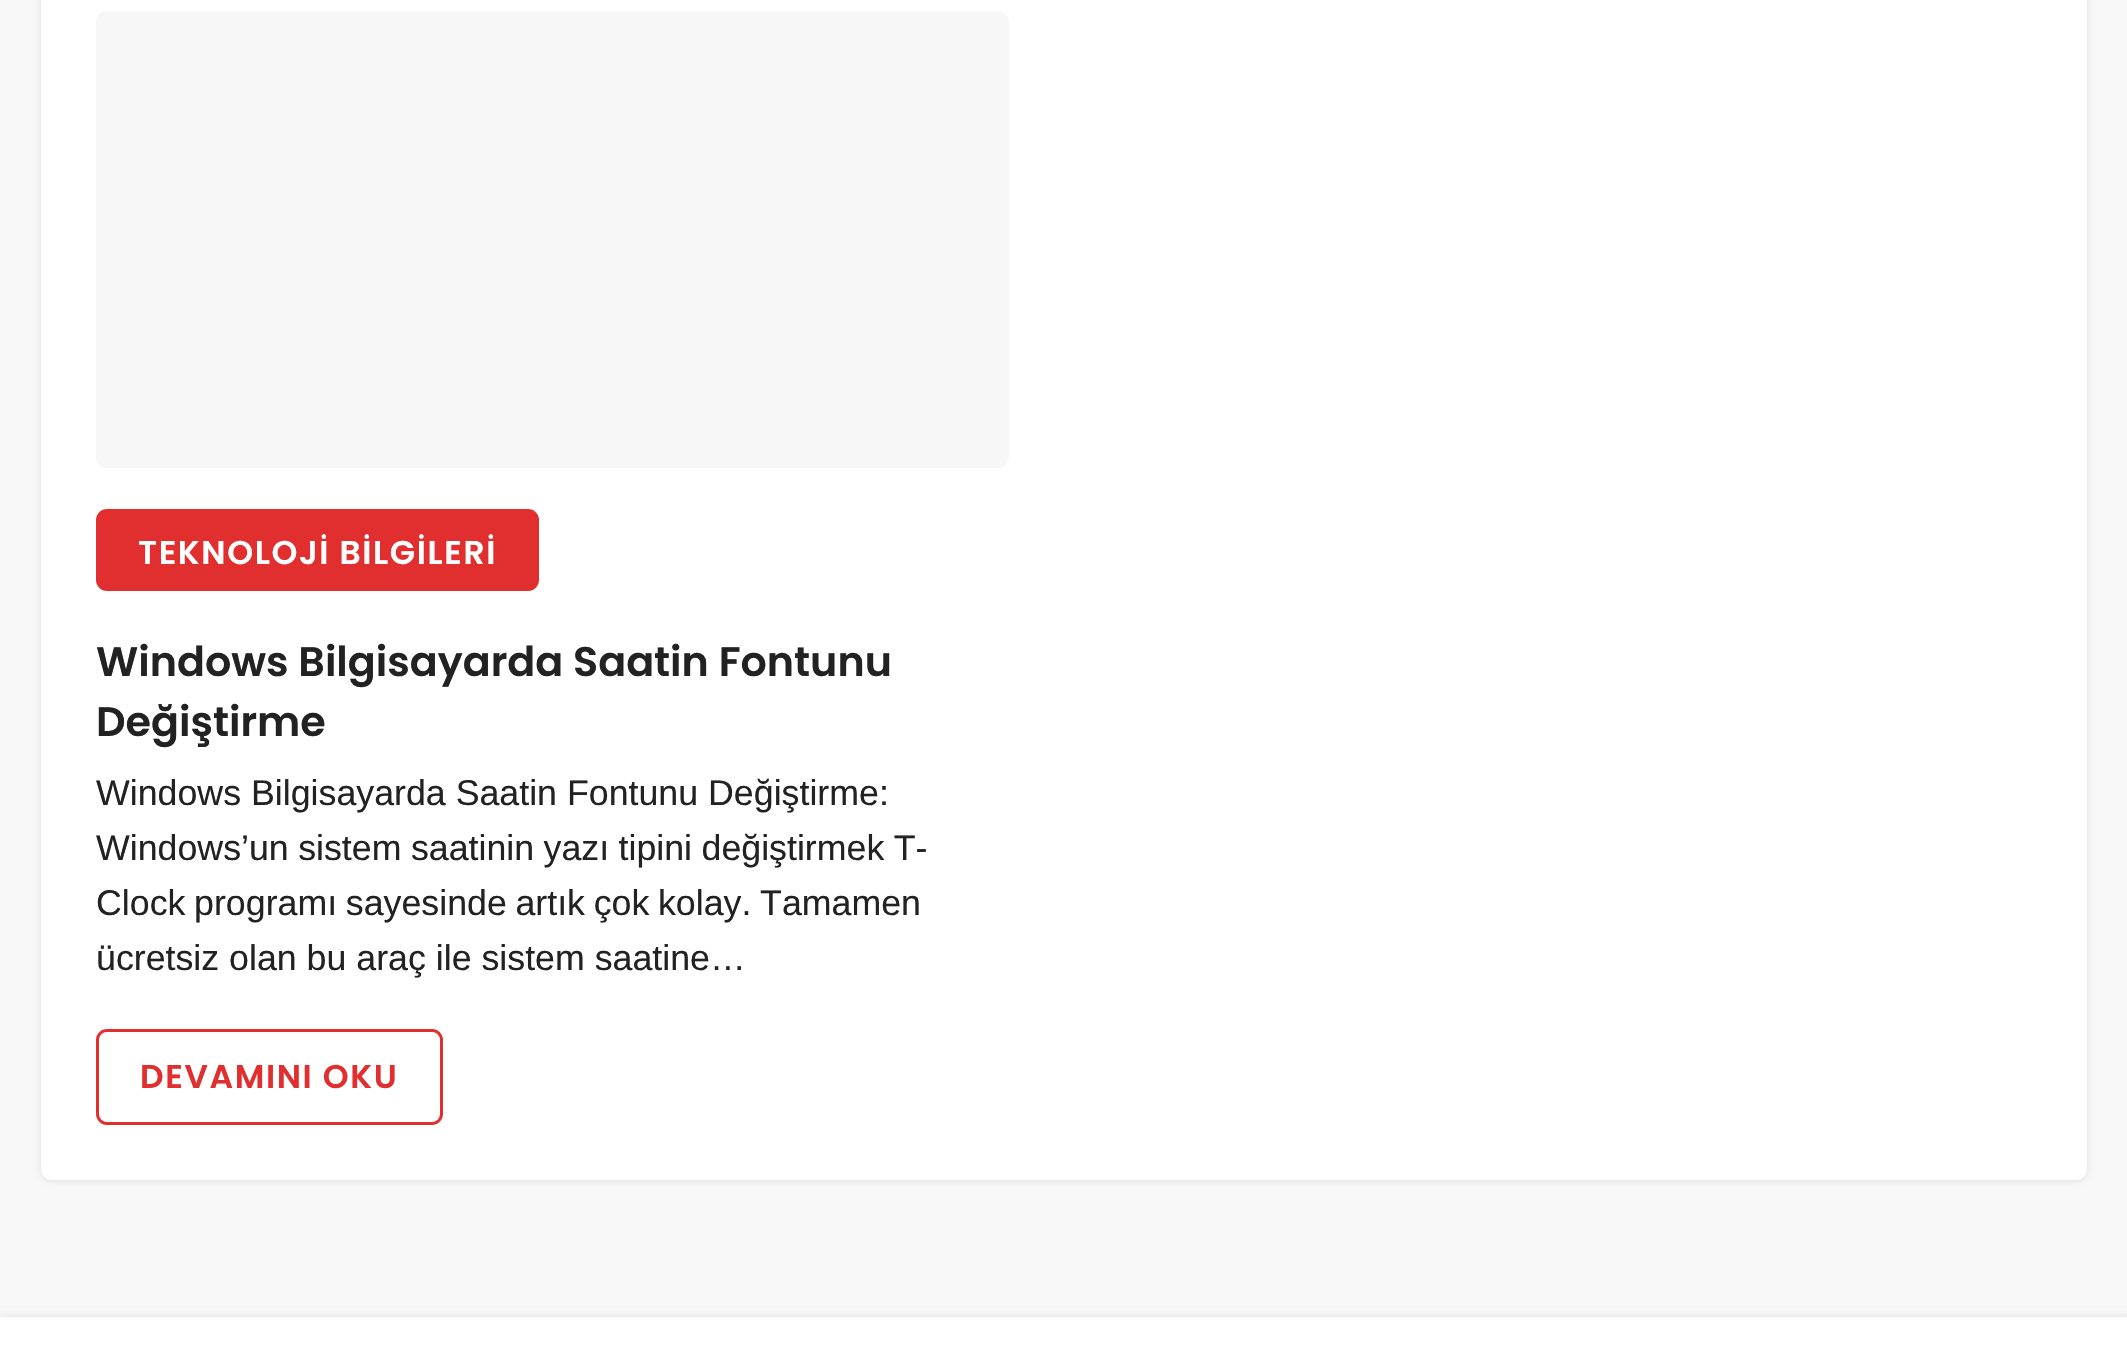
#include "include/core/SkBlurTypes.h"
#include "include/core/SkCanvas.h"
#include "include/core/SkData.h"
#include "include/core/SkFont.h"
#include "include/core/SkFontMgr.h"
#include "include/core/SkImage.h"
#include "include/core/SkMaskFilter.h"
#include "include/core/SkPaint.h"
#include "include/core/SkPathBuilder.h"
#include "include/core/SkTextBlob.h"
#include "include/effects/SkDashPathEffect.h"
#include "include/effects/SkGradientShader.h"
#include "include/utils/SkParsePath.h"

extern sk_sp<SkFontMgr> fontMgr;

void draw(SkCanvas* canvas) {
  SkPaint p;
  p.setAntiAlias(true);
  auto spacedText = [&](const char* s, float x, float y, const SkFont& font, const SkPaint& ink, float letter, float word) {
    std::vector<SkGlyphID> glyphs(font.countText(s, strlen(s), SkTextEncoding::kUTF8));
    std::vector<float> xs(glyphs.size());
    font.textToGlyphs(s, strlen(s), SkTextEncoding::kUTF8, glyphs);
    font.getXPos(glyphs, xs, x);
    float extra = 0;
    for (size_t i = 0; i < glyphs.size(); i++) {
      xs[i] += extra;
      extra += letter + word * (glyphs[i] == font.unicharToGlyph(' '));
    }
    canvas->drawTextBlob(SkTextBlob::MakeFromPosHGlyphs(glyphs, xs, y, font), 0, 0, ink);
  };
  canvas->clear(SkColorSetRGB(248, 248, 248));
  p.setColor(SkColorSetARGB(26, 0, 0, 0));
  p.setMaskFilter(SkMaskFilter::MakeBlur(kNormal_SkBlurStyle, 4));
  canvas->drawRoundRect(SkRect::MakeLTRB(41, -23, 2087, 1180), 11, 11, p);
  p.setMaskFilter(nullptr);
  p.setColor(SK_ColorWHITE);
  canvas->drawRoundRect(SkRect::MakeLTRB(41, -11, 2087, 1180), 11, 11, p);
  p.setColor(SkColorSetRGB(247, 247, 247));
  canvas->drawRoundRect(SkRect::MakeLTRB(96, 11, 1009, 468), 11, 11, p);
  p.setColor(SkColorSetRGB(225, 46, 46));
  canvas->drawRoundRect(SkRect::MakeLTRB(96, 509, 539, 591), 11, 11, p);
  p.setStyle(SkPaint::kStroke_Style);
  p.setStrokeWidth(3);
  canvas->drawRoundRect(SkRect::MakeLTRB(97.5f, 1030.5f, 441.5f, 1123.5f), 9.5f, 9.5f, p);
  p.setStyle(SkPaint::kFill_Style);
  p.setColor(SkColorSetARGB(26, 0, 0, 0));
  p.setMaskFilter(SkMaskFilter::MakeBlur(kNormal_SkBlurStyle, 4));
  canvas->drawRect(SkRect::MakeLTRB(0, 1317, 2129, 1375), p);
  p.setMaskFilter(nullptr);
  p.setColor(SK_ColorWHITE);
  canvas->drawRect(SkRect::MakeLTRB(0, 1317, 2127, 1363), p);
  SkFont font1(fontMgr->matchFamilyStyle("Poppins", SkFontStyle(600, SkFontStyle::kNormal_Width, SkFontStyle::kUpright_Slant)), 33);
  font1.setSubpixel(true);
  spacedText("TEKNOLOJİ BİLGİLERİ", 138, 564, font1, p, 1.6f, 0);
  SkFont font2(fontMgr->matchFamilyStyle("Poppins", SkFontStyle(600, SkFontStyle::kNormal_Width, SkFontStyle::kUpright_Slant)), 41.25f);
  font2.setSubpixel(true);
  p.setColor(SkColorSetRGB(34, 34, 34));
  canvas->drawString("Windows Bilgisayarda Saatin Fontunu", 96, 676, font2, p);
  canvas->drawString("Değiştirme", 96, 736, font2, p);
  SkFont font3(fontMgr->matchFamilyStyle("Liberation Sans", SkFontStyle::Normal()), 35.75f);
  font3.setSubpixel(true);
  canvas->drawString("Windows Bilgisayarda Saatin Fontunu Değiştirme:", 96, 805, font3, p);
  spacedText("Windows’un sistem saatinin yazı tipini değiştirmek T-", 96, 860, font3, p, 0, -0.5f);
  spacedText("Clock programı sayesinde artık çok kolay. Tamamen", 96, 915, font3, p, 0, -1.25f);
  canvas->drawString("ücretsiz olan bu araç ile sistem saatine…", 96, 970, font3, p);
  p.setColor(SkColorSetRGB(225, 46, 46));
  spacedText("DEVAMINI OKU", 140, 1088, font1, p, 1.6f, 0);
}
